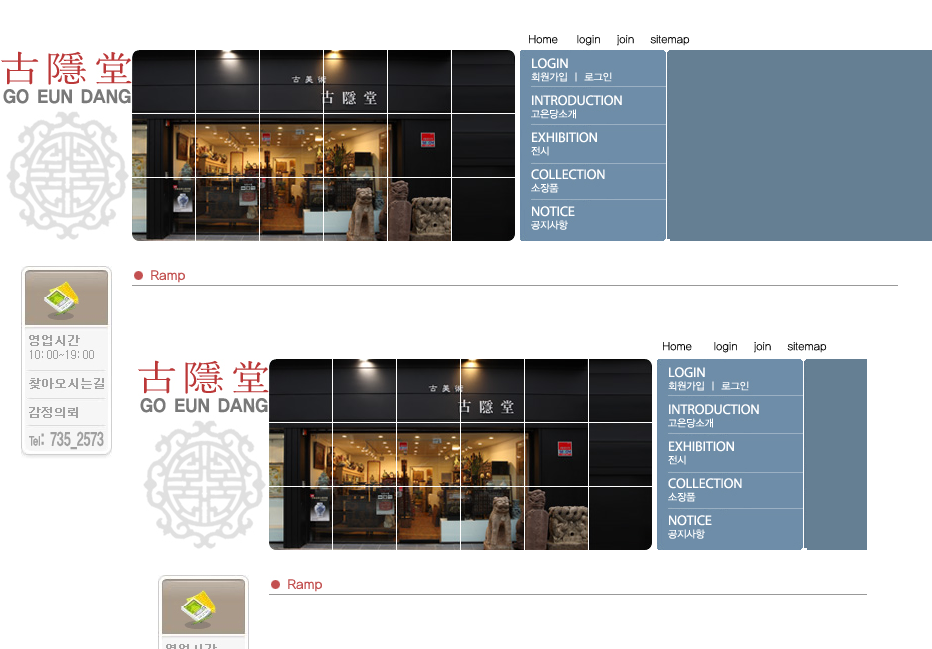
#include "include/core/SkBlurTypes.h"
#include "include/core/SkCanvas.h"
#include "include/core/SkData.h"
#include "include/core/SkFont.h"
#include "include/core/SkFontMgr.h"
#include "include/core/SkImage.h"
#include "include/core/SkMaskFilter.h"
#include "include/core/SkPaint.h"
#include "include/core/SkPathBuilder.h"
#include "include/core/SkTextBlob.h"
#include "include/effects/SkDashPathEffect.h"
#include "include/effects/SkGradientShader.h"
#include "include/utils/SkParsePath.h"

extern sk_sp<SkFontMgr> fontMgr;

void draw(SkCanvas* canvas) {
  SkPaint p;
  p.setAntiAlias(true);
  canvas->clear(SK_ColorWHITE);
  canvas->drawImageRect(SkImages::DeferredFromEncodedData(SkData::MakeFromFileName("images/1.png")), SkRect::MakeLTRB(529, 35, 558, 44), SkSamplingOptions());
  canvas->drawImageRect(SkImages::DeferredFromEncodedData(SkData::MakeFromFileName("images/2.png")), SkRect::MakeLTRB(577, 35, 600, 46), SkSamplingOptions());
  canvas->drawImageRect(SkImages::DeferredFromEncodedData(SkData::MakeFromFileName("images/3.png")), SkRect::MakeLTRB(617, 35, 634, 46), SkSamplingOptions());
  canvas->drawImageRect(SkImages::DeferredFromEncodedData(SkData::MakeFromFileName("images/4.png")), SkRect::MakeLTRB(650, 35, 690, 46), SkSamplingOptions());
  canvas->drawImageRect(SkImages::DeferredFromEncodedData(SkData::MakeFromFileName("images/5.png")), SkRect::MakeLTRB(1, 51, 132, 240), SkSamplingOptions());
  canvas->drawImageRect(SkImages::DeferredFromEncodedData(SkData::MakeFromFileName("images/6.png")), SkRect::MakeLTRB(132, 50, 515, 241), SkSamplingOptions());
  canvas->drawImageRect(SkImages::DeferredFromEncodedData(SkData::MakeFromFileName("images/7.png")), SkRect::MakeLTRB(520, 50, 666, 53), SkSamplingOptions());
  canvas->drawImageRect(SkImages::DeferredFromEncodedData(SkData::MakeFromFileName("images/8.png")), SkRect::MakeLTRB(520, 53, 666, 88), SkSamplingOptions());
  canvas->drawImageRect(SkImages::DeferredFromEncodedData(SkData::MakeFromFileName("images/9.png")), SkRect::MakeLTRB(520, 88, 666, 124), SkSamplingOptions());
  canvas->drawImageRect(SkImages::DeferredFromEncodedData(SkData::MakeFromFileName("images/10.png")), SkRect::MakeLTRB(520, 124, 666, 163), SkSamplingOptions());
  canvas->drawImageRect(SkImages::DeferredFromEncodedData(SkData::MakeFromFileName("images/11.png")), SkRect::MakeLTRB(520, 163, 666, 199), SkSamplingOptions());
  canvas->drawImageRect(SkImages::DeferredFromEncodedData(SkData::MakeFromFileName("images/12.png")), SkRect::MakeLTRB(520, 199, 666, 239), SkSamplingOptions());
  canvas->drawImageRect(SkImages::DeferredFromEncodedData(SkData::MakeFromFileName("images/13.png")), SkRect::MakeLTRB(520, 239, 665, 241), SkSamplingOptions());
  canvas->drawImageRect(SkImages::DeferredFromEncodedData(SkData::MakeFromFileName("images/14.png")), SkRect::MakeLTRB(667, 50, 670, 239), SkSamplingOptions());
  p.setColor(SkColorSetRGB(101, 127, 147));
  canvas->drawRect(SkRect::MakeLTRB(670, 50, 932, 241), p);
  canvas->drawImageRect(SkImages::DeferredFromEncodedData(SkData::MakeFromFileName("images/15.png")), SkRect::MakeLTRB(21, 266, 112, 459), SkSamplingOptions());
  canvas->drawImageRect(SkImages::DeferredFromEncodedData(SkData::MakeFromFileName("images/16.png")), SkRect::MakeLTRB(134, 270, 185, 283), SkSamplingOptions());
  p.setColor(SkColorSetRGB(153, 153, 153));
  canvas->drawRect(SkRect::MakeLTRB(132, 285, 898, 286), p);
  canvas->drawImageRect(SkImages::DeferredFromEncodedData(SkData::MakeFromFileName("images/17.png")), SkRect::MakeLTRB(138, 342, 867, 649), SkSamplingOptions());
}
